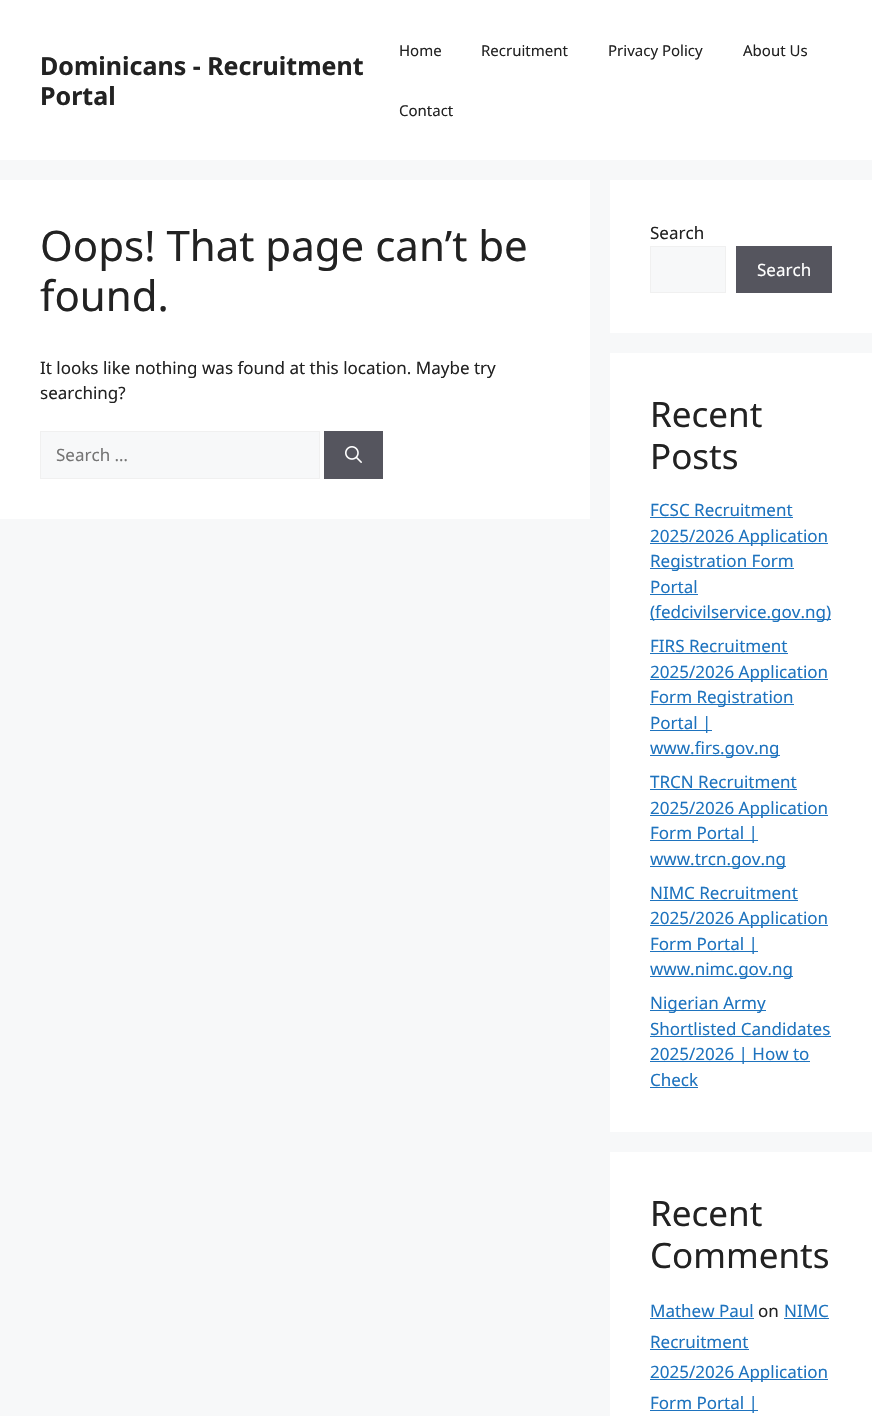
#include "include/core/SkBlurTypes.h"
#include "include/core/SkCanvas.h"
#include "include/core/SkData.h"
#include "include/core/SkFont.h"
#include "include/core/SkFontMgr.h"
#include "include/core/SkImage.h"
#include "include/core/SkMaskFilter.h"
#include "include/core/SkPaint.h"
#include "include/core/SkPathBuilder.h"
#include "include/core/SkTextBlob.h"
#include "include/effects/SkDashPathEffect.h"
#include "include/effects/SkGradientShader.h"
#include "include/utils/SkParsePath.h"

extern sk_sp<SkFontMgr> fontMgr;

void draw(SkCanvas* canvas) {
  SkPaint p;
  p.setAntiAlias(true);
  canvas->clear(SkColorSetRGB(247, 248, 249));
  p.setColor(SK_ColorWHITE);
  canvas->drawRect(SkRect::MakeLTRB(0, 0, 872, 160), p);
  canvas->drawRect(SkRect::MakeLTRB(0, 180, 590, 519), p);
  p.setColor(SkColorSetRGB(247, 248, 249));
  canvas->drawRect(SkRect::MakeLTRB(40.5f, 431.5f, 319.5f, 478.5f), p);
  p.setStyle(SkPaint::kStroke_Style);
  p.setStrokeWidth(1);
  p.setColor(SkColorSetRGB(240, 240, 240));
  canvas->drawRect(SkRect::MakeLTRB(40.5f, 431.5f, 319.5f, 478.5f), p);
  p.setStyle(SkPaint::kFill_Style);
  p.setColor(SkColorSetRGB(85, 85, 94));
  canvas->drawRect(SkRect::MakeLTRB(324, 431, 383, 479), p);
  canvas->drawImageRect(SkImages::DeferredFromEncodedData(SkData::MakeFromFileName("images/1.png")), SkRect::MakeLTRB(345, 446, 362, 463), SkSamplingOptions());
  p.setColor(SK_ColorWHITE);
  canvas->drawRect(SkRect::MakeLTRB(610, 180, 872, 333), p);
  p.setColor(SkColorSetRGB(247, 248, 249));
  canvas->drawRect(SkRect::MakeLTRB(650.5f, 246.5f, 725.5f, 292.5f), p);
  p.setStyle(SkPaint::kStroke_Style);
  p.setColor(SkColorSetRGB(240, 240, 240));
  canvas->drawRect(SkRect::MakeLTRB(650.5f, 246.5f, 725.5f, 292.5f), p);
  p.setStyle(SkPaint::kFill_Style);
  p.setColor(SkColorSetRGB(85, 85, 94));
  canvas->drawRect(SkRect::MakeLTRB(736, 246, 832, 293), p);
  p.setColor(SK_ColorWHITE);
  canvas->drawRect(SkRect::MakeLTRB(610, 353, 872, 1132), p);
  p.setColor(SkColorSetRGB(30, 115, 190));
  canvas->drawRect(SkRect::MakeLTRB(650, 517, 793, 518), p);
  canvas->drawRect(SkRect::MakeLTRB(650, 543, 828, 544), p);
  canvas->drawRect(SkRect::MakeLTRB(650, 568, 794, 569), p);
  canvas->drawRect(SkRect::MakeLTRB(650, 594, 698, 595), p);
  canvas->drawRect(SkRect::MakeLTRB(650, 619, 831, 620), p);
  canvas->drawRect(SkRect::MakeLTRB(650, 653, 788, 654), p);
  canvas->drawRect(SkRect::MakeLTRB(650, 679, 828, 680), p);
  canvas->drawRect(SkRect::MakeLTRB(650, 704, 794, 705), p);
  canvas->drawRect(SkRect::MakeLTRB(650, 730, 712, 731), p);
  canvas->drawRect(SkRect::MakeLTRB(650, 755, 780, 756), p);
  canvas->drawRect(SkRect::MakeLTRB(650, 789, 797, 790), p);
  canvas->drawRect(SkRect::MakeLTRB(650, 815, 828, 816), p);
  canvas->drawRect(SkRect::MakeLTRB(650, 840, 758, 841), p);
  canvas->drawRect(SkRect::MakeLTRB(650, 866, 786, 867), p);
  canvas->drawRect(SkRect::MakeLTRB(650, 900, 798, 901), p);
  canvas->drawRect(SkRect::MakeLTRB(650, 925, 828, 926), p);
  canvas->drawRect(SkRect::MakeLTRB(650, 951, 758, 952), p);
  canvas->drawRect(SkRect::MakeLTRB(650, 976, 793, 977), p);
  canvas->drawRect(SkRect::MakeLTRB(650, 1010, 766, 1011), p);
  canvas->drawRect(SkRect::MakeLTRB(650, 1036, 831, 1037), p);
  canvas->drawRect(SkRect::MakeLTRB(650, 1061, 810, 1062), p);
  canvas->drawRect(SkRect::MakeLTRB(650, 1087, 698, 1088), p);
  p.setColor(SK_ColorWHITE);
  canvas->drawRect(SkRect::MakeLTRB(610, 1152, 872, 1416), p);
  p.setColor(SkColorSetRGB(30, 115, 190));
  canvas->drawRect(SkRect::MakeLTRB(650, 1318, 754, 1319), p);
  canvas->drawRect(SkRect::MakeLTRB(784, 1318, 829, 1319), p);
  canvas->drawRect(SkRect::MakeLTRB(650, 1349, 749, 1350), p);
  canvas->drawRect(SkRect::MakeLTRB(650, 1379, 828, 1380), p);
  canvas->drawRect(SkRect::MakeLTRB(650, 1410, 758, 1411), p);
  SkFont font1(fontMgr->matchFamilyStyle("Noto Sans", SkFontStyle::Bold()), 25);
  font1.setSubpixel(true);
  p.setColor(SkColorSetRGB(34, 34, 34));
  canvas->drawString("Dominicans - Recruitment", 40, 75, font1, p);
  canvas->drawString("Portal", 40, 105, font1, p);
  SkFont font2(fontMgr->matchFamilyStyle("Noto Sans", SkFontStyle::Normal()), 15);
  font2.setSubpixel(true);
  canvas->drawString("Home", 399, 56, font2, p);
  canvas->drawString("Recruitment", 481, 56, font2, p);
  canvas->drawString("Privacy Policy", 608, 56, font2, p);
  canvas->drawString("About Us", 743, 56, font2, p);
  canvas->drawString("Contact", 399, 116, font2, p);
  SkFont font3(fontMgr->matchFamilyStyle("Noto Sans", SkFontStyle::Normal()), 42);
  font3.setSubpixel(true);
  canvas->drawString("Oops! That page can’t be", 40, 261, font3, p);
  canvas->drawString("found.", 40, 311, font3, p);
  SkFont font4(fontMgr->matchFamilyStyle("Noto Sans", SkFontStyle::Normal()), 17);
  font4.setSubpixel(true);
  canvas->drawString("It looks like nothing was found at this location. Maybe try", 40, 374, font4, p);
  canvas->drawString("searching?", 40, 399, font4, p);
  p.setColor(SkColorSetRGB(117, 117, 117));
  canvas->drawString("Search …", 56, 461, font4, p);
  p.setColor(SkColorSetRGB(34, 34, 34));
  canvas->drawString("Search", 650, 239, font4, p);
  p.setColor(SK_ColorWHITE);
  canvas->drawString("Search", 757, 276, font4, p);
  SkFont font5(fontMgr->matchFamilyStyle("Noto Sans", SkFontStyle::Normal()), 35);
  font5.setSubpixel(true);
  p.setColor(SkColorSetRGB(34, 34, 34));
  canvas->drawString("Recent", 650, 427, font5, p);
  canvas->drawString("Posts", 650, 469, font5, p);
  p.setColor(SkColorSetRGB(30, 115, 190));
  canvas->drawString("FCSC Recruitment", 650, 516, font4, p);
  canvas->drawString("2025/2026 Application", 650, 542, font4, p);
  canvas->drawString("Registration Form", 650, 567, font4, p);
  canvas->drawString("Portal", 650, 593, font4, p);
  canvas->drawString("(fedcivilservice.gov.ng)", 650, 618, font4, p);
  canvas->drawString("FIRS Recruitment", 650, 652, font4, p);
  canvas->drawString("2025/2026 Application", 650, 678, font4, p);
  canvas->drawString("Form Registration", 650, 703, font4, p);
  canvas->drawString("Portal |", 650, 729, font4, p);
  canvas->drawString("www.firs.gov.ng", 650, 754, font4, p);
  canvas->drawString("TRCN Recruitment", 650, 788, font4, p);
  canvas->drawString("2025/2026 Application", 650, 814, font4, p);
  canvas->drawString("Form Portal |", 650, 839, font4, p);
  canvas->drawString("www.trcn.gov.ng", 650, 865, font4, p);
  canvas->drawString("NIMC Recruitment", 650, 899, font4, p);
  canvas->drawString("2025/2026 Application", 650, 924, font4, p);
  canvas->drawString("Form Portal |", 650, 950, font4, p);
  canvas->drawString("www.nimc.gov.ng", 650, 975, font4, p);
  canvas->drawString("Nigerian Army", 650, 1009, font4, p);
  canvas->drawString("Shortlisted Candidates", 650, 1035, font4, p);
  canvas->drawString("2025/2026 | How to", 650, 1060, font4, p);
  canvas->drawString("Check", 650, 1086, font4, p);
  p.setColor(SkColorSetRGB(34, 34, 34));
  canvas->drawString("Recent", 650, 1226, font5, p);
  canvas->drawString("Comments", 650, 1268, font5, p);
  p.setColor(SkColorSetRGB(30, 115, 190));
  canvas->drawString("Mathew Paul", 650, 1317, font4, p);
  p.setColor(SkColorSetRGB(34, 34, 34));
  canvas->drawString("on", 758, 1317, font4, p);
  p.setColor(SkColorSetRGB(30, 115, 190));
  canvas->drawString("NIMC", 784, 1317, font4, p);
  canvas->drawString("Recruitment", 650, 1348, font4, p);
  canvas->drawString("2025/2026 Application", 650, 1378, font4, p);
  canvas->drawString("Form Portal |", 650, 1409, font4, p);
}
